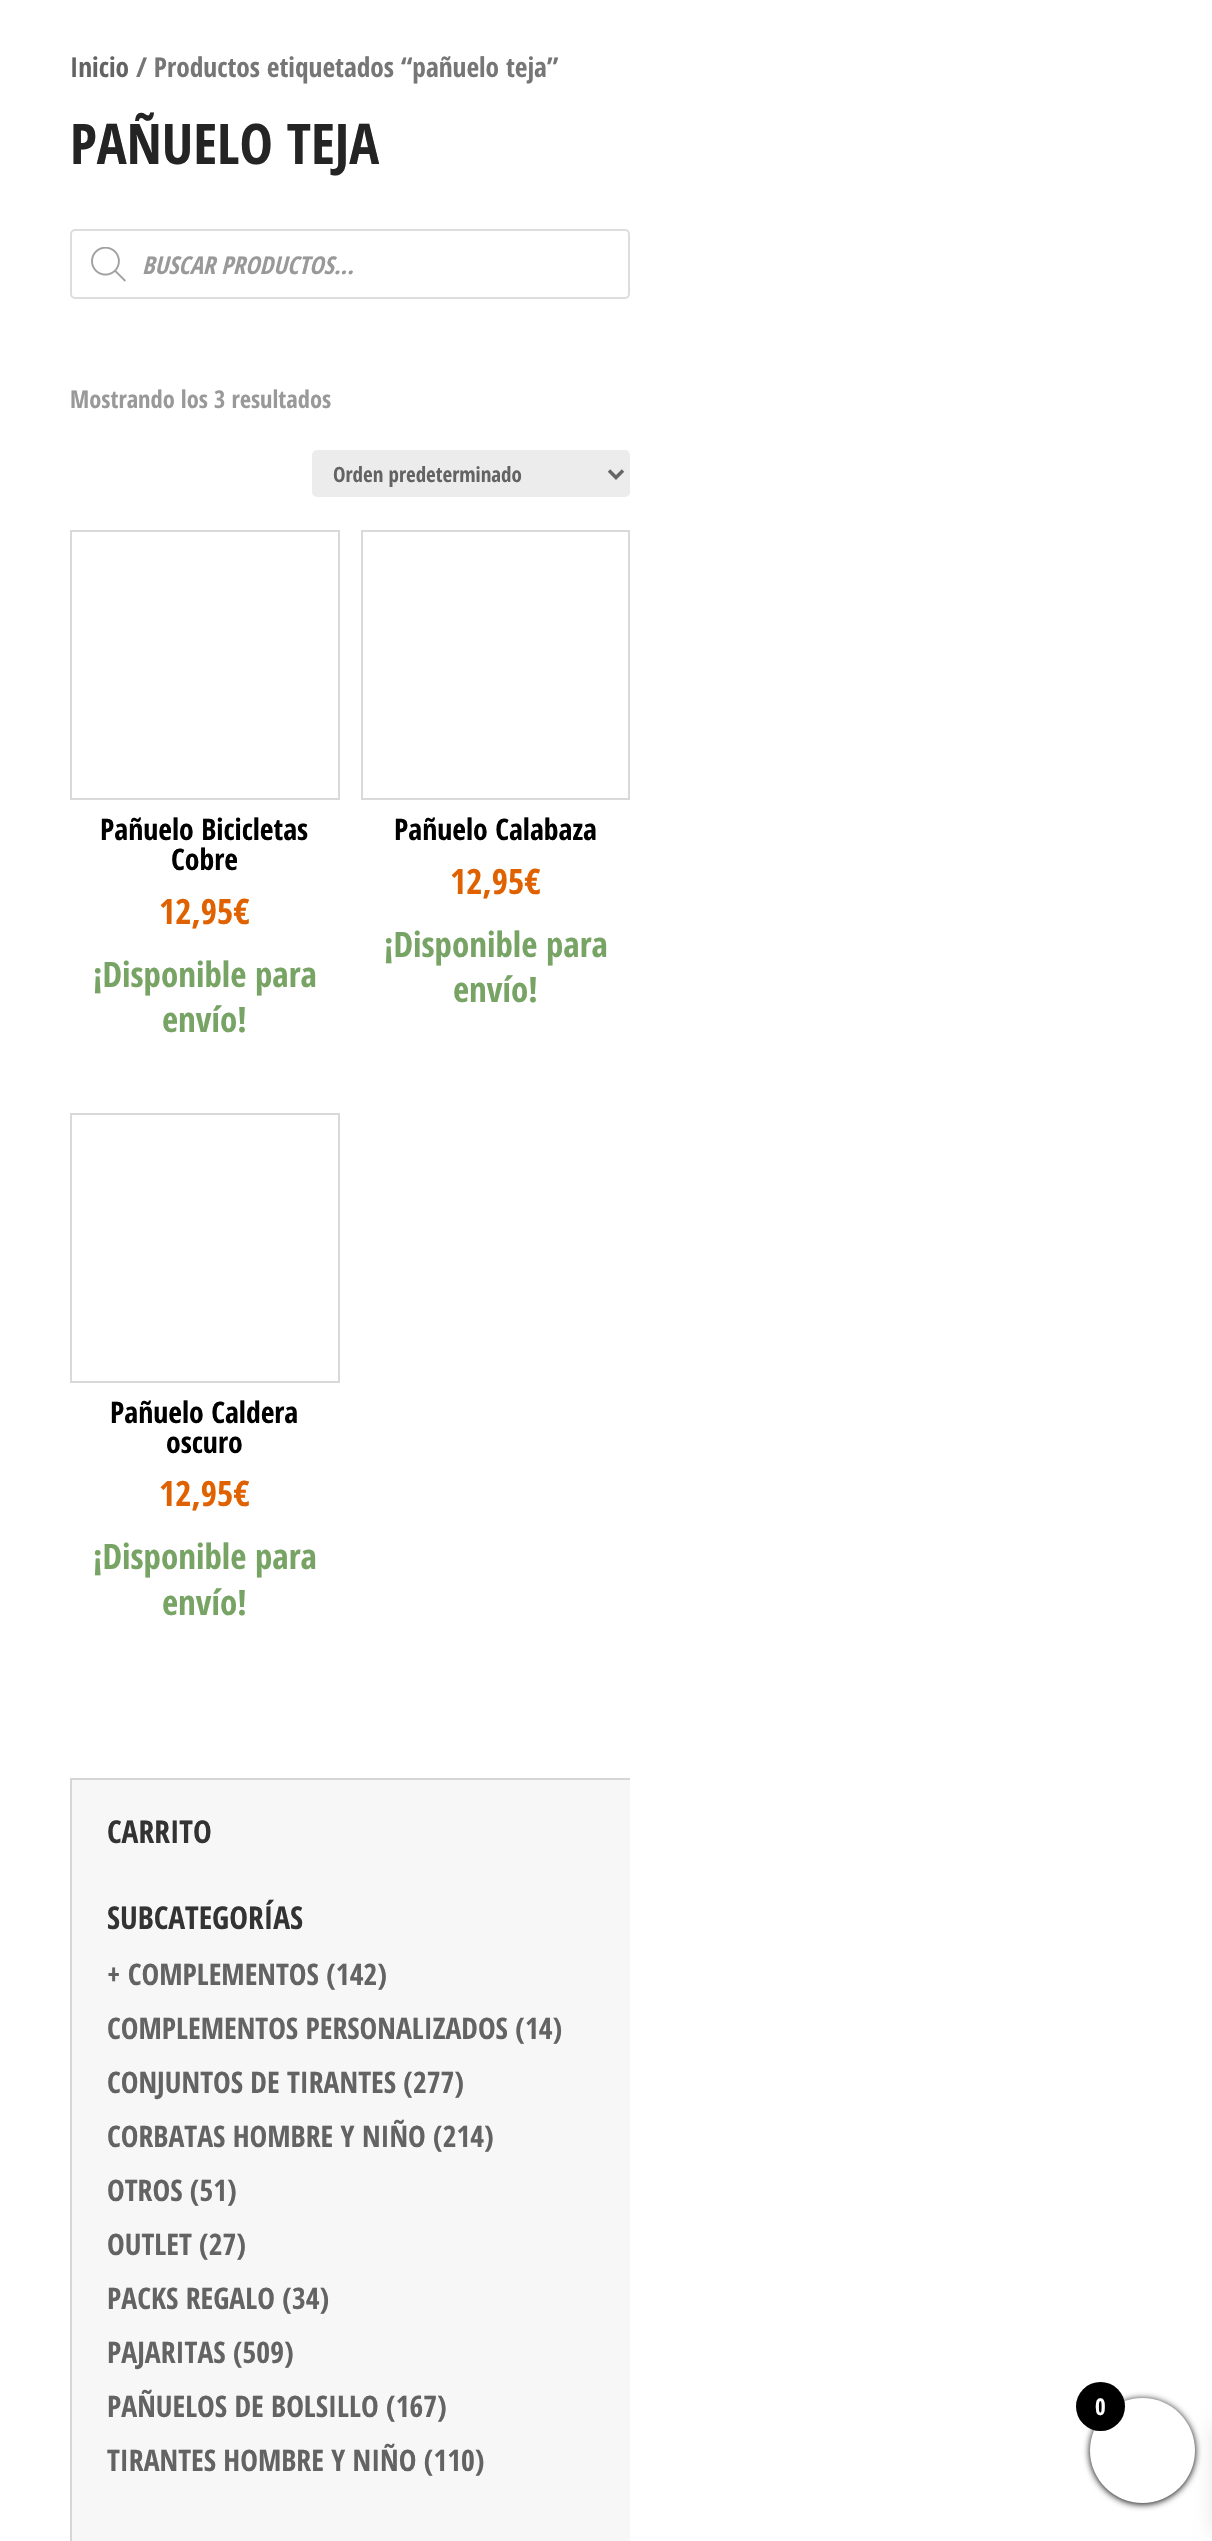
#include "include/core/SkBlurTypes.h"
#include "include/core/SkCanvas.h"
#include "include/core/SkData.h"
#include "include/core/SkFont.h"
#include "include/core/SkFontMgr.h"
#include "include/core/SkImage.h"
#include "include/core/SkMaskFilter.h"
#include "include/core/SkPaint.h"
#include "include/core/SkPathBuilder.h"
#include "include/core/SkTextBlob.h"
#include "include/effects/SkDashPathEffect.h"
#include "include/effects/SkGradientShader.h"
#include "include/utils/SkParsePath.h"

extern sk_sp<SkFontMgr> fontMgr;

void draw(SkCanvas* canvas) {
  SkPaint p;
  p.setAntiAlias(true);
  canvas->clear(SK_ColorWHITE);
  p.setStyle(SkPaint::kStroke_Style);
  p.setStrokeWidth(2);
  p.setColor(SkColorSetRGB(221, 221, 221));
  canvas->drawRoundRect(SkRect::MakeLTRB(71, 230, 629, 298), 4, 4, p);
  canvas->drawImageRect(SkImages::DeferredFromEncodedData(SkData::MakeFromFileName("images/1.png")), SkRect::MakeLTRB(91, 247, 126, 282), SkSamplingOptions());
  p.setStyle(SkPaint::kFill_Style);
  p.setColor(SkColorSetRGB(236, 236, 236));
  canvas->drawRoundRect(SkRect::MakeLTRB(312, 450, 630, 497), 5, 5, p);
  p.setStyle(SkPaint::kStroke_Style);
  p.setStrokeWidth(3.5f);
  p.setColor(SkColorSetRGB(102, 102, 102));
  canvas->drawPath(SkPathBuilder().moveTo(609, 470.5f).lineTo(616, 477.5f).lineTo(623, 470.5f).detach(), p);
  p.setStrokeWidth(2);
  p.setColor(SkColorSetRGB(217, 217, 217));
  canvas->drawRect(SkRect::MakeLTRB(71, 531, 339, 799), p);
  canvas->drawRect(SkRect::MakeLTRB(362, 531, 629, 799), p);
  canvas->drawRect(SkRect::MakeLTRB(71, 1114, 339, 1382), p);
  p.setStyle(SkPaint::kFill_Style);
  p.setColor(SkColorSetRGB(247, 247, 247));
  canvas->drawRect(SkRect::MakeLTRB(72, 1780, 630, 2541), p);
  p.setColor(SkColorSetRGB(214, 214, 214));
  canvas->drawRect(SkRect::MakeLTRB(70, 1778, 630, 1780), p);
  canvas->drawRect(SkRect::MakeLTRB(70, 1778, 72, 2541), p);
  p.setColor(SK_ColorBLACK);
  p.setMaskFilter(SkMaskFilter::MakeBlur(kNormal_SkBlurStyle, 3.5f));
  canvas->drawRoundRect(SkRect::MakeLTRB(1090, 2399, 1195, 2504), 52.5f, 52.5f, p);
  p.setMaskFilter(nullptr);
  p.setColor(SkColorSetARGB(26, 0, 0, 0));
  p.setMaskFilter(SkMaskFilter::MakeBlur(kNormal_SkBlurStyle, 9));
  canvas->drawRect(SkRect::MakeLTRB(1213, 2426, 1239, 2532), p);
  p.setMaskFilter(nullptr);
  p.setColor(SK_ColorWHITE);
  canvas->drawCircle(1142.5f, 2450.5f, 52.5f, p);
  p.setColor(SK_ColorBLACK);
  canvas->drawCircle(1100.5f, 2406.5f, 24.5f, p);
  SkFont font1(fontMgr->matchFamilyStyle("Open Sans Condensed", SkFontStyle::Bold()), 27.4f);
  font1.setSubpixel(true);
  p.setColor(SkColorSetRGB(99, 99, 99));
  canvas->drawString("Inicio", 70, 77, font1, p);
  p.setColor(SkColorSetRGB(118, 118, 118));
  canvas->drawString("/ Productos etiquetados “pañuelo teja”", 136, 77, font1, p);
  SkFont font2(fontMgr->matchFamilyStyle("Open Sans Condensed", SkFontStyle::Bold()), 56);
  font2.setSubpixel(true);
  p.setColor(SkColorSetRGB(36, 36, 36));
  canvas->drawString("PAÑUELO TEJA", 70, 164, font2, p);
  SkFont font3(fontMgr->matchFamilyStyle("Open Sans Condensed", SkFontStyle::BoldItalic()), 24.5f);
  font3.setSubpixel(true);
  p.setColor(SkColorSetRGB(153, 153, 153));
  canvas->drawString("BUSCAR PRODUCTOS...", 142, 274, font3, p);
  SkFont font4(fontMgr->matchFamilyStyle("Open Sans Condensed", SkFontStyle::Bold()), 24.5f);
  font4.setSubpixel(true);
  canvas->drawString("Mostrando los 3 resultados", 70, 408, font4, p);
  SkFont font5(fontMgr->matchFamilyStyle("Open Sans Condensed", SkFontStyle::Bold()), 21);
  font5.setSubpixel(true);
  p.setColor(SkColorSetRGB(99, 99, 99));
  canvas->drawString("Orden predeterminado", 333, 482, font5, p);
  SkFont font6(fontMgr->matchFamilyStyle("Open Sans Condensed", SkFontStyle::Bold()), 29.75f);
  font6.setSubpixel(true);
  p.setColor(SK_ColorBLACK);
  canvas->drawString("Pañuelo Bicicletas", 100, 840, font6, p);
  canvas->drawString("Cobre", 171, 870, font6, p);
  SkFont font7(fontMgr->matchFamilyStyle("Open Sans Condensed", SkFontStyle::Bold()), 35);
  font7.setSubpixel(true);
  p.setColor(SkColorSetRGB(224, 97, 0));
  canvas->drawString("12,95€", 159, 924, font7, p);
  p.setColor(SkColorSetRGB(119, 164, 100));
  canvas->drawString("¡Disponible para", 93, 987, font7, p);
  canvas->drawString("envío!", 162, 1032, font7, p);
  p.setColor(SK_ColorBLACK);
  canvas->drawString("Pañuelo Calabaza", 394, 840, font6, p);
  p.setColor(SkColorSetRGB(224, 97, 0));
  canvas->drawString("12,95€", 450, 894, font7, p);
  p.setColor(SkColorSetRGB(119, 164, 100));
  canvas->drawString("¡Disponible para", 384, 957, font7, p);
  canvas->drawString("envío!", 453, 1002, font7, p);
  p.setColor(SK_ColorBLACK);
  canvas->drawString("Pañuelo Caldera", 110, 1423, font6, p);
  canvas->drawString("oscuro", 166, 1453, font6, p);
  p.setColor(SkColorSetRGB(224, 97, 0));
  canvas->drawString("12,95€", 159, 1506, font7, p);
  p.setColor(SkColorSetRGB(119, 164, 100));
  canvas->drawString("¡Disponible para", 93, 1569, font7, p);
  canvas->drawString("envío!", 162, 1615, font7, p);
  SkFont font8(fontMgr->matchFamilyStyle("Open Sans Condensed", SkFontStyle::Bold()), 31.5f);
  font8.setSubpixel(true);
  p.setColor(SkColorSetRGB(51, 51, 51));
  canvas->drawString("CARRITO", 107, 1843, font8, p);
  canvas->drawString("SUBCATEGORÍAS", 107, 1929, font8, p);
  p.setColor(SkColorSetRGB(99, 99, 99));
  canvas->drawString("+ COMPLEMENTOS (142)", 107, 1985, font6, p);
  canvas->drawString("COMPLEMENTOS PERSONALIZADOS (14)", 107, 2039, font6, p);
  canvas->drawString("CONJUNTOS DE TIRANTES (277)", 107, 2093, font6, p);
  canvas->drawString("CORBATAS HOMBRE Y NIÑO (214)", 107, 2147, font6, p);
  canvas->drawString("OTROS (51)", 107, 2201, font6, p);
  canvas->drawString("OUTLET (27)", 107, 2255, font6, p);
  canvas->drawString("PACKS REGALO (34)", 107, 2309, font6, p);
  canvas->drawString("PAJARITAS (509)", 107, 2363, font6, p);
  canvas->drawString("PAÑUELOS DE BOLSILLO (167)", 107, 2417, font6, p);
  canvas->drawString("TIRANTES HOMBRE Y NIÑO (110)", 107, 2471, font6, p);
  SkFont font9(fontMgr->matchFamilyStyle("Open Sans Condensed", SkFontStyle::Bold()), 23);
  font9.setSubpixel(true);
  p.setColor(SK_ColorWHITE);
  canvas->drawString("0", 1095, 2415, font9, p);
}
